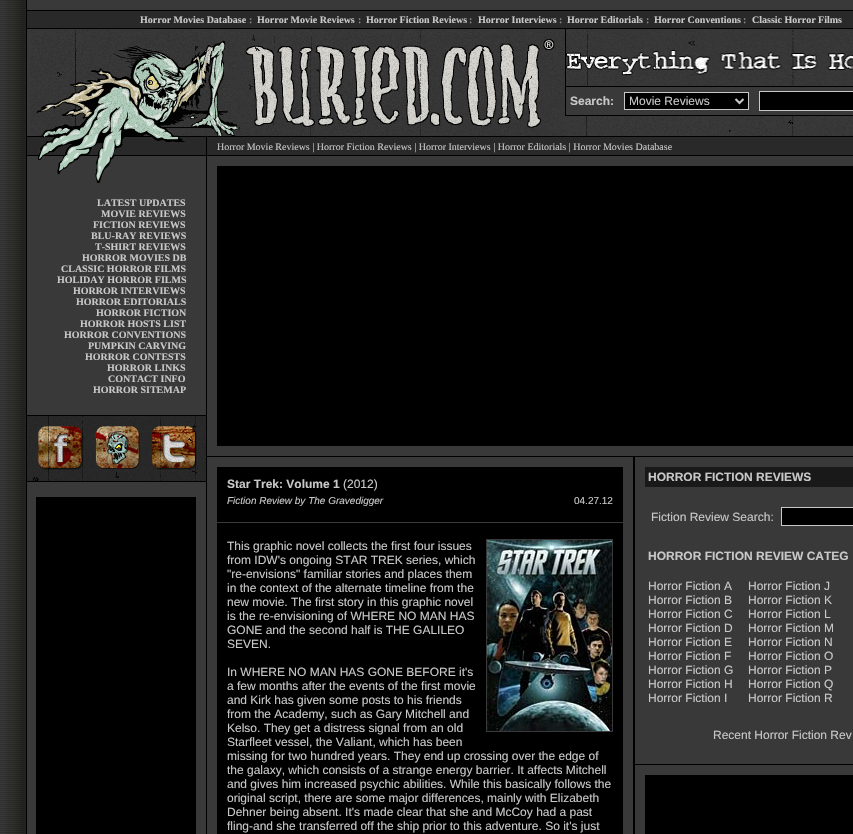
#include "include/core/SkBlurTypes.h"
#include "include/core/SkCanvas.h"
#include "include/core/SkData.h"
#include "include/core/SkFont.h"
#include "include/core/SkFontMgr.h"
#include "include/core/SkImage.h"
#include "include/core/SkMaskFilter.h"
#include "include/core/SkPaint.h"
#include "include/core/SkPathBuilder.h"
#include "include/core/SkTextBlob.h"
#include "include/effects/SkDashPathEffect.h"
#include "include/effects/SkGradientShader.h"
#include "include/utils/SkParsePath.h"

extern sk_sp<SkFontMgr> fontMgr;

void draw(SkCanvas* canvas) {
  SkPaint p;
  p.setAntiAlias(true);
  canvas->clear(SkColorSetRGB(57, 57, 57));
  canvas->drawImageRect(SkImages::DeferredFromEncodedData(SkData::MakeFromFileName("images/1.png")), SkRect::MakeLTRB(0, 0, 26, 833), SkSamplingOptions());
  canvas->drawImageRect(SkImages::DeferredFromEncodedData(SkData::MakeFromFileName("images/2.png")), SkRect::MakeLTRB(5, 0, 26, 834), SkSamplingOptions());
  p.setColor(SK_ColorBLACK);
  canvas->drawRect(SkRect::MakeLTRB(26, 0, 27, 834), p);
  canvas->drawImageRect(SkImages::DeferredFromEncodedData(SkData::MakeFromFileName("images/3.png")), SkRect::MakeLTRB(206, 29, 634, 834), SkSamplingOptions());
  canvas->drawRect(SkRect::MakeLTRB(27, 10, 853, 11), p);
  p.setColor(SkColorSetRGB(41, 41, 41));
  canvas->drawRect(SkRect::MakeLTRB(27, 11, 853, 28), p);
  p.setColor(SK_ColorBLACK);
  canvas->drawRect(SkRect::MakeLTRB(27, 28, 853, 29), p);
  canvas->drawImageRect(SkImages::DeferredFromEncodedData(SkData::MakeFromFileName("images/4.png")), SkRect::MakeLTRB(30, 29, 206, 86), SkSamplingOptions());
  canvas->drawImageRect(SkImages::DeferredFromEncodedData(SkData::MakeFromFileName("images/5.png")), SkRect::MakeLTRB(206, 29, 565, 86), SkSamplingOptions());
  canvas->drawImageRect(SkImages::DeferredFromEncodedData(SkData::MakeFromFileName("images/6.png")), SkRect::MakeLTRB(566, 29, 853, 86), SkSamplingOptions());
  canvas->drawImageRect(SkImages::DeferredFromEncodedData(SkData::MakeFromFileName("images/7.png")), SkRect::MakeLTRB(30, 86, 206, 136), SkSamplingOptions());
  canvas->drawImageRect(SkImages::DeferredFromEncodedData(SkData::MakeFromFileName("images/8.png")), SkRect::MakeLTRB(206, 86, 565, 136), SkSamplingOptions());
  canvas->drawImageRect(SkImages::DeferredFromEncodedData(SkData::MakeFromFileName("images/9.png")), SkRect::MakeLTRB(565, 116, 853, 136), SkSamplingOptions());
  p.setColor(SkColorSetRGB(57, 57, 57));
  canvas->drawRect(SkRect::MakeLTRB(566, 87, 634, 115), p);
  p.setStyle(SkPaint::kStroke_Style);
  p.setStrokeWidth(1);
  p.setColor(SK_ColorBLACK);
  canvas->drawRect(SkRect::MakeLTRB(565.5f, 86.5f, 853.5f, 115.5f), p);
  p.setStyle(SkPaint::kFill_Style);
  canvas->drawRect(SkRect::MakeLTRB(624.5f, 92.5f, 748.5f, 109.5f), p);
  p.setStyle(SkPaint::kStroke_Style);
  p.setColor(SkColorSetRGB(200, 200, 200));
  canvas->drawRect(SkRect::MakeLTRB(624.5f, 92.5f, 748.5f, 109.5f), p);
  p.setStrokeWidth(2);
  canvas->drawPath(SkPathBuilder().moveTo(735.5f, 99).lineTo(739.5f, 103).lineTo(743.5f, 99).detach(), p);
  p.setStyle(SkPaint::kFill_Style);
  p.setColor(SK_ColorBLACK);
  canvas->drawRect(SkRect::MakeLTRB(759.5f, 91.5f, 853.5f, 110.5f), p);
  p.setStyle(SkPaint::kStroke_Style);
  p.setStrokeWidth(1);
  p.setColor(SkColorSetRGB(200, 200, 200));
  canvas->drawRect(SkRect::MakeLTRB(759.5f, 91.5f, 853.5f, 110.5f), p);
  canvas->drawImageRect(SkImages::DeferredFromEncodedData(SkData::MakeFromFileName("images/10.png")), SkRect::MakeLTRB(27, 136, 206, 156), SkSamplingOptions());
  p.setStyle(SkPaint::kFill_Style);
  p.setColor(SK_ColorBLACK);
  canvas->drawRect(SkRect::MakeLTRB(207, 136, 853, 137), p);
  p.setColor(SkColorSetRGB(41, 41, 41));
  canvas->drawRect(SkRect::MakeLTRB(207, 137, 853, 155), p);
  p.setColor(SK_ColorBLACK);
  canvas->drawRect(SkRect::MakeLTRB(207, 155, 853, 156), p);
  canvas->drawImageRect(SkImages::DeferredFromEncodedData(SkData::MakeFromFileName("images/11.png")), SkRect::MakeLTRB(38, 156, 114, 183), SkSamplingOptions());
  canvas->drawRect(SkRect::MakeLTRB(27, 415, 206, 416), p);
  canvas->drawImageRect(SkImages::DeferredFromEncodedData(SkData::MakeFromFileName("images/12.png")), SkRect::MakeLTRB(27, 416, 87, 481), SkSamplingOptions());
  canvas->drawImageRect(SkImages::DeferredFromEncodedData(SkData::MakeFromFileName("images/13.png")), SkRect::MakeLTRB(87, 416, 146, 481), SkSamplingOptions());
  canvas->drawImageRect(SkImages::DeferredFromEncodedData(SkData::MakeFromFileName("images/14.png")), SkRect::MakeLTRB(146, 416, 206, 481), SkSamplingOptions());
  canvas->drawRect(SkRect::MakeLTRB(27, 481, 206, 482), p);
  canvas->drawRect(SkRect::MakeLTRB(36, 497, 196, 834), p);
  p.setColor(SkColorSetRGB(57, 57, 57));
  canvas->drawRect(SkRect::MakeLTRB(217, 156, 634, 166), p);
  p.setColor(SK_ColorBLACK);
  canvas->drawRect(SkRect::MakeLTRB(622, 166, 853, 446), p);
  p.setColor(SkColorSetRGB(57, 57, 57));
  canvas->drawRect(SkRect::MakeLTRB(217, 446, 634, 456), p);
  p.setColor(SK_ColorBLACK);
  canvas->drawRect(SkRect::MakeLTRB(207, 456, 853, 457), p);
  p.setColor(SkColorSetRGB(57, 57, 57));
  canvas->drawRect(SkRect::MakeLTRB(217, 457, 622, 467), p);
  p.setColor(SK_ColorBLACK);
  canvas->drawRect(SkRect::MakeLTRB(622, 467, 623, 834), p);
  p.setColor(SkColorSetRGB(57, 57, 57));
  canvas->drawRect(SkRect::MakeLTRB(217, 522, 623, 523), p);
  p.setStyle(SkPaint::kStroke_Style);
  canvas->drawRect(SkRect::MakeLTRB(486.5f, 539.5f, 612.5f, 731.5f), p);
  canvas->drawImageRect(SkImages::DeferredFromEncodedData(SkData::MakeFromFileName("images/15.png")), SkRect::MakeLTRB(487, 540, 612, 731), SkSamplingOptions());
  p.setStyle(SkPaint::kFill_Style);
  p.setColor(SK_ColorBLACK);
  canvas->drawRect(SkRect::MakeLTRB(634, 457, 635, 834), p);
  p.setColor(SkColorSetRGB(25, 25, 25));
  canvas->drawRect(SkRect::MakeLTRB(645, 467, 853, 487), p);
  p.setColor(SK_ColorBLACK);
  canvas->drawRect(SkRect::MakeLTRB(781.5f, 507.5f, 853.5f, 525.5f), p);
  p.setStyle(SkPaint::kStroke_Style);
  p.setColor(SkColorSetRGB(200, 200, 200));
  canvas->drawRect(SkRect::MakeLTRB(781.5f, 507.5f, 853.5f, 525.5f), p);
  p.setStyle(SkPaint::kFill_Style);
  p.setColor(SK_ColorBLACK);
  canvas->drawRect(SkRect::MakeLTRB(635, 764, 853, 765), p);
  canvas->drawRect(SkRect::MakeLTRB(645, 775, 853, 834), p);
  SkFont font1(fontMgr->matchFamilyStyle("Liberation Serif", SkFontStyle::Bold()), 10);
  font1.setSubpixel(true);
  p.setColor(SkColorSetRGB(200, 200, 200));
  canvas->drawString("Horror Movies Database", 140, 23, font1, p);
  p.setColor(SkColorSetRGB(136, 136, 136));
  canvas->drawString(":", 249, 23, font1, p);
  p.setColor(SkColorSetRGB(200, 200, 200));
  canvas->drawString("Horror Movie Reviews", 257, 23, font1, p);
  p.setColor(SkColorSetRGB(136, 136, 136));
  canvas->drawString(":", 358, 23, font1, p);
  p.setColor(SkColorSetRGB(200, 200, 200));
  canvas->drawString("Horror Fiction Reviews", 366, 23, font1, p);
  p.setColor(SkColorSetRGB(136, 136, 136));
  canvas->drawString(":", 469, 23, font1, p);
  p.setColor(SkColorSetRGB(200, 200, 200));
  canvas->drawString("Horror Interviews", 478, 23, font1, p);
  p.setColor(SkColorSetRGB(136, 136, 136));
  canvas->drawString(":", 559, 23, font1, p);
  p.setColor(SkColorSetRGB(200, 200, 200));
  canvas->drawString("Horror Editorials", 567, 23, font1, p);
  p.setColor(SkColorSetRGB(136, 136, 136));
  canvas->drawString(":", 646, 23, font1, p);
  p.setColor(SkColorSetRGB(200, 200, 200));
  canvas->drawString("Horror Conventions", 654, 23, font1, p);
  p.setColor(SkColorSetRGB(136, 136, 136));
  canvas->drawString(":", 743, 23, font1, p);
  p.setColor(SkColorSetRGB(200, 200, 200));
  canvas->drawString("Classic Horror Films", 752, 23, font1, p);
  SkFont font2(fontMgr->matchFamilyStyle("Liberation Sans", SkFontStyle::Bold()), 12);
  font2.setSubpixel(true);
  canvas->drawString("Search:", 570, 105, font2, p);
  SkFont font3(fontMgr->matchFamilyStyle("Liberation Sans", SkFontStyle::Normal()), 12);
  font3.setSubpixel(true);
  canvas->drawString("Movie Reviews", 629, 105, font3, p);
  SkFont font4(fontMgr->matchFamilyStyle("Liberation Serif", SkFontStyle::Normal()), 10);
  font4.setSubpixel(true);
  canvas->drawString("Horror Movie Reviews | Horror Fiction Reviews | Horror Interviews | Horror Editorials | Horror Movies Database", 217, 150, font4, p);
  canvas->drawString("LATEST UPDATES", 97, 206, font1, p);
  canvas->drawString("MOVIE REVIEWS", 101, 217, font1, p);
  canvas->drawString("FICTION REVIEWS", 93, 228, font1, p);
  canvas->drawString("BLU-RAY REVIEWS", 91, 239, font1, p);
  canvas->drawString("T-SHIRT REVIEWS", 95, 250, font1, p);
  canvas->drawString("HORROR MOVIES DB", 82, 261, font1, p);
  canvas->drawString("CLASSIC HORROR FILMS", 61, 272, font1, p);
  canvas->drawString("HOLIDAY HORROR FILMS", 57, 283, font1, p);
  canvas->drawString("HORROR INTERVIEWS", 73, 294, font1, p);
  canvas->drawString("HORROR EDITORIALS", 76, 305, font1, p);
  canvas->drawString("HORROR FICTION", 96, 316, font1, p);
  canvas->drawString("HORROR HOSTS LIST", 80, 327, font1, p);
  canvas->drawString("HORROR CONVENTIONS", 64, 338, font1, p);
  canvas->drawString("PUMPKIN CARVING", 88, 349, font1, p);
  canvas->drawString("HORROR CONTESTS", 85, 360, font1, p);
  canvas->drawString("HORROR LINKS", 107, 371, font1, p);
  canvas->drawString("CONTACT INFO", 108, 382, font1, p);
  canvas->drawString("HORROR SITEMAP", 93, 393, font1, p);
  canvas->drawString("Star Trek: Volume 1", 227, 488, font2, p);
  canvas->drawString("(2012)", 343, 488, font3, p);
  SkFont font5(fontMgr->matchFamilyStyle("Liberation Sans", SkFontStyle::Italic()), 10);
  font5.setSubpixel(true);
  canvas->drawString("Fiction Review by The Gravedigger", 227, 504, font5, p);
  SkFont font6(fontMgr->matchFamilyStyle("Liberation Sans", SkFontStyle::Normal()), 10);
  font6.setSubpixel(true);
  canvas->drawString("04.27.12", 574, 504, font6, p);
  canvas->drawString("This graphic novel collects the first four issues", 227, 550, font3, p);
  canvas->drawString("from IDW's ongoing STAR TREK series, which", 227, 564, font3, p);
  canvas->drawString("\"re-envisions\" familiar stories and places them", 227, 578, font3, p);
  canvas->drawString("in the context of the alternate timeline from the", 227, 592, font3, p);
  canvas->drawString("new movie. The first story in this graphic novel", 227, 606, font3, p);
  canvas->drawString("is the re-envisioning of WHERE NO MAN HAS", 227, 620, font3, p);
  canvas->drawString("GONE and the second half is THE GALILEO", 227, 634, font3, p);
  canvas->drawString("SEVEN.", 227, 648, font3, p);
  canvas->drawString("In WHERE NO MAN HAS GONE BEFORE it's", 227, 676, font3, p);
  canvas->drawString("a few months after the events of the first movie", 227, 690, font3, p);
  canvas->drawString("and Kirk has given some posts to his friends", 227, 704, font3, p);
  canvas->drawString("from the Academy, such as Gary Mitchell and", 227, 718, font3, p);
  canvas->drawString("Kelso. They get a distress signal from an old", 227, 732, font3, p);
  canvas->drawString("Starfleet vessel, the Valiant, which has been", 227, 746, font3, p);
  canvas->drawString("missing for two hundred years. They end up crossing over the edge of", 227, 760, font3, p);
  canvas->drawString("the galaxy, which consists of a strange energy barrier. It affects Mitchell", 227, 774, font3, p);
  canvas->drawString("and gives him increased psychic abilities. While this basically follows the", 227, 788, font3, p);
  canvas->drawString("original script, there are some major differences, mainly with Elizabeth", 227, 802, font3, p);
  canvas->drawString("Dehner being absent. It's made clear that she and McCoy had a past", 227, 816, font3, p);
  canvas->drawString("fling-and she transferred off the ship prior to this adventure. So it's just", 227, 830, font3, p);
  canvas->drawString("HORROR FICTION REVIEWS", 648, 481, font2, p);
  canvas->drawString("Fiction Review Search:", 651, 521, font3, p);
  canvas->drawString("HORROR FICTION REVIEW CATEG", 648, 560, font2, p);
  canvas->drawString("Horror Fiction A", 648, 590, font3, p);
  canvas->drawString("Horror Fiction B", 648, 604, font3, p);
  canvas->drawString("Horror Fiction C", 648, 618, font3, p);
  canvas->drawString("Horror Fiction D", 648, 632, font3, p);
  canvas->drawString("Horror Fiction E", 648, 646, font3, p);
  canvas->drawString("Horror Fiction F", 648, 660, font3, p);
  canvas->drawString("Horror Fiction G", 648, 674, font3, p);
  canvas->drawString("Horror Fiction H", 648, 688, font3, p);
  canvas->drawString("Horror Fiction I", 648, 702, font3, p);
  canvas->drawString("Horror Fiction J", 748, 590, font3, p);
  canvas->drawString("Horror Fiction K", 748, 604, font3, p);
  canvas->drawString("Horror Fiction L", 748, 618, font3, p);
  canvas->drawString("Horror Fiction M", 748, 632, font3, p);
  canvas->drawString("Horror Fiction N", 748, 646, font3, p);
  canvas->drawString("Horror Fiction O", 748, 660, font3, p);
  canvas->drawString("Horror Fiction P", 748, 674, font3, p);
  canvas->drawString("Horror Fiction Q", 748, 688, font3, p);
  canvas->drawString("Horror Fiction R", 748, 702, font3, p);
  canvas->drawString("Recent Horror Fiction Rev", 713, 739, font3, p);
}
